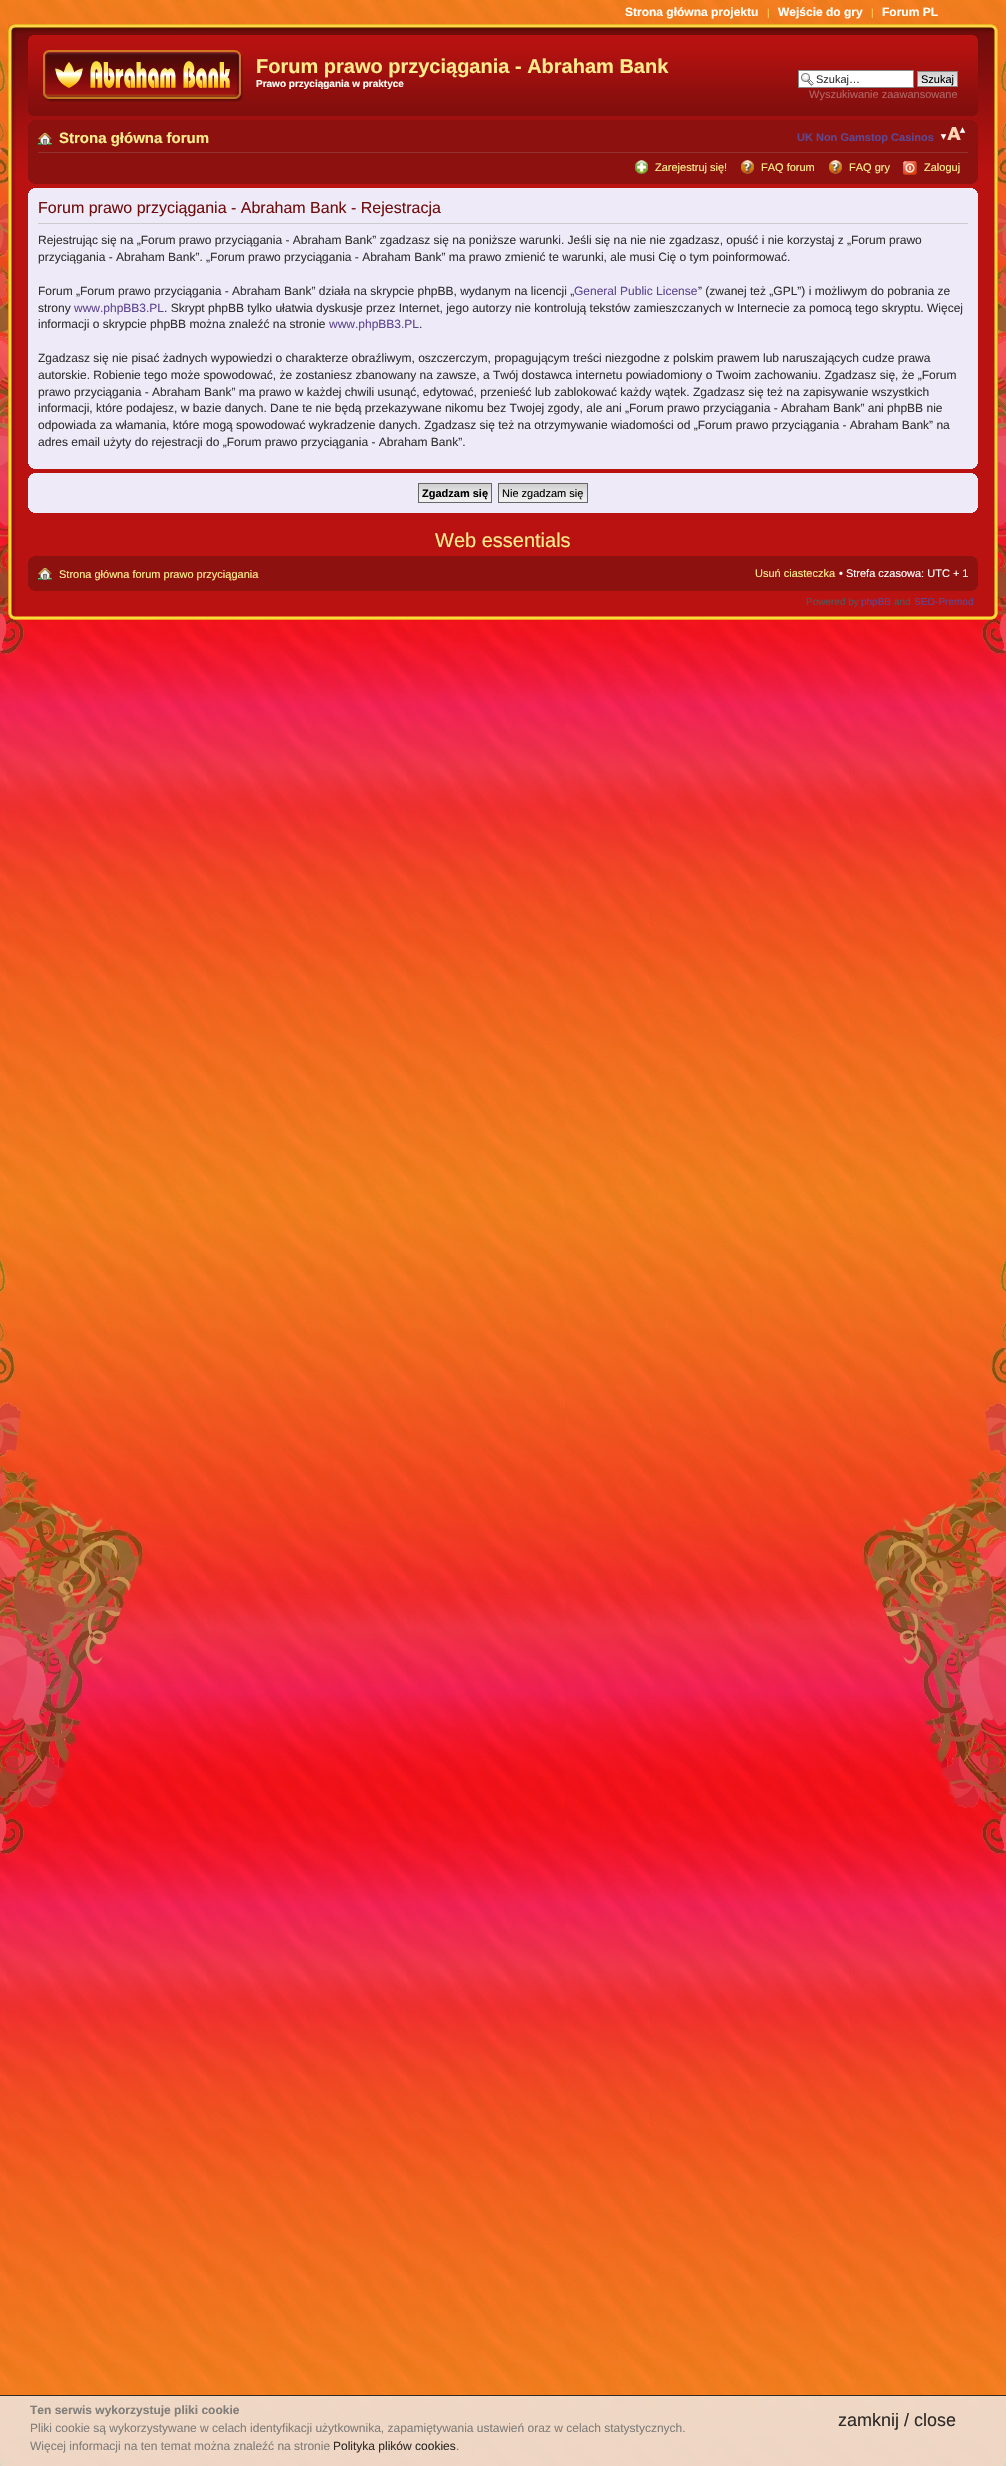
#include "include/core/SkBlurTypes.h"
#include "include/core/SkCanvas.h"
#include "include/core/SkData.h"
#include "include/core/SkFont.h"
#include "include/core/SkFontMgr.h"
#include "include/core/SkImage.h"
#include "include/core/SkMaskFilter.h"
#include "include/core/SkPaint.h"
#include "include/core/SkPathBuilder.h"
#include "include/core/SkTextBlob.h"
#include "include/effects/SkDashPathEffect.h"
#include "include/effects/SkGradientShader.h"
#include "include/utils/SkParsePath.h"

extern sk_sp<SkFontMgr> fontMgr;

void draw(SkCanvas* canvas) {
  SkPaint p;
  p.setAntiAlias(true);
  canvas->clear(SK_ColorWHITE);
  canvas->drawImageRect(SkImages::DeferredFromEncodedData(SkData::MakeFromFileName("images/1.png")), SkRect::MakeLTRB(0, 0, 1006, 2466), SkSamplingOptions());
  canvas->drawImageRect(SkImages::DeferredFromEncodedData(SkData::MakeFromFileName("images/2.png")), SkRect::MakeLTRB(8, 176, 998, 612), SkSamplingOptions());
  canvas->drawImageRect(SkImages::DeferredFromEncodedData(SkData::MakeFromFileName("images/3.png")), SkRect::MakeLTRB(8, 24, 998, 176), SkSamplingOptions());
  canvas->drawImageRect(SkImages::DeferredFromEncodedData(SkData::MakeFromFileName("images/4.png")), SkRect::MakeLTRB(28, 35, 978, 116), SkSamplingOptions());
  canvas->drawImageRect(SkImages::DeferredFromEncodedData(SkData::MakeFromFileName("images/5.png")), SkRect::MakeLTRB(28, 35, 32, 39), SkSamplingOptions());
  canvas->drawImageRect(SkImages::DeferredFromEncodedData(SkData::MakeFromFileName("images/6.png")), SkRect::MakeLTRB(974, 35, 978, 39), SkSamplingOptions());
  canvas->drawImageRect(SkImages::DeferredFromEncodedData(SkData::MakeFromFileName("images/7.png")), SkRect::MakeLTRB(43, 50, 243, 102), SkSamplingOptions());
  p.setColor(SK_ColorWHITE);
  canvas->drawRect(SkRect::MakeLTRB(799, 71, 913, 87), p);
  canvas->drawImageRect(SkImages::DeferredFromEncodedData(SkData::MakeFromFileName("images/8.png")), SkRect::MakeLTRB(801, 73, 814, 86), SkSamplingOptions());
  p.setStyle(SkPaint::kStroke_Style);
  p.setStrokeWidth(1);
  p.setColor(SkColorSetRGB(136, 136, 136));
  canvas->drawRect(SkRect::MakeLTRB(798.5f, 70.5f, 913.5f, 87.5f), p);
  canvas->drawImageRect(SkImages::DeferredFromEncodedData(SkData::MakeFromFileName("images/9.png")), SkRect::MakeLTRB(918, 72, 957, 86), SkSamplingOptions());
  canvas->drawRect(SkRect::MakeLTRB(917.5f, 71.5f, 957.5f, 86.5f), p);
  canvas->drawImageRect(SkImages::DeferredFromEncodedData(SkData::MakeFromFileName("images/10.png")), SkRect::MakeLTRB(28, 112, 32, 116), SkSamplingOptions());
  canvas->drawImageRect(SkImages::DeferredFromEncodedData(SkData::MakeFromFileName("images/11.png")), SkRect::MakeLTRB(974, 112, 978, 116), SkSamplingOptions());
  p.setStyle(SkPaint::kFill_Style);
  p.setColor(SkColorSetRGB(141, 18, 15));
  canvas->drawRect(SkRect::MakeLTRB(28, 120, 978, 184), p);
  canvas->drawImageRect(SkImages::DeferredFromEncodedData(SkData::MakeFromFileName("images/12.png")), SkRect::MakeLTRB(28, 120, 33, 125), SkSamplingOptions());
  canvas->drawImageRect(SkImages::DeferredFromEncodedData(SkData::MakeFromFileName("images/13.png")), SkRect::MakeLTRB(973, 120, 978, 125), SkSamplingOptions());
  p.setColor(SkColorSetRGB(144, 51, 49));
  canvas->drawRect(SkRect::MakeLTRB(38, 152, 968, 153), p);
  canvas->drawImageRect(SkImages::DeferredFromEncodedData(SkData::MakeFromFileName("images/14.png")), SkRect::MakeLTRB(38, 132, 52, 145), SkSamplingOptions());
  canvas->drawImageRect(SkImages::DeferredFromEncodedData(SkData::MakeFromFileName("images/15.png")), SkRect::MakeLTRB(940, 127, 966, 140), SkSamplingOptions());
  canvas->drawImageRect(SkImages::DeferredFromEncodedData(SkData::MakeFromFileName("images/16.png")), SkRect::MakeLTRB(635, 160, 648, 174), SkSamplingOptions());
  canvas->drawImageRect(SkImages::DeferredFromEncodedData(SkData::MakeFromFileName("images/17.png")), SkRect::MakeLTRB(741, 160, 754, 174), SkSamplingOptions());
  canvas->drawImageRect(SkImages::DeferredFromEncodedData(SkData::MakeFromFileName("images/17.png")), SkRect::MakeLTRB(829, 160, 842, 174), SkSamplingOptions());
  canvas->drawImageRect(SkImages::DeferredFromEncodedData(SkData::MakeFromFileName("images/18.png")), SkRect::MakeLTRB(903, 161, 917, 175), SkSamplingOptions());
  canvas->drawImageRect(SkImages::DeferredFromEncodedData(SkData::MakeFromFileName("images/19.png")), SkRect::MakeLTRB(28, 179, 33, 184), SkSamplingOptions());
  canvas->drawImageRect(SkImages::DeferredFromEncodedData(SkData::MakeFromFileName("images/20.png")), SkRect::MakeLTRB(973, 179, 978, 184), SkSamplingOptions());
  p.setColor(SkColorSetRGB(238, 234, 247));
  canvas->drawRect(SkRect::MakeLTRB(28, 188, 978, 469), p);
  canvas->drawImageRect(SkImages::DeferredFromEncodedData(SkData::MakeFromFileName("images/21.png")), SkRect::MakeLTRB(28, 188, 33, 193), SkSamplingOptions());
  canvas->drawImageRect(SkImages::DeferredFromEncodedData(SkData::MakeFromFileName("images/22.png")), SkRect::MakeLTRB(973, 188, 978, 193), SkSamplingOptions());
  p.setColor(SkColorSetRGB(204, 204, 204));
  canvas->drawRect(SkRect::MakeLTRB(38, 223, 968, 224), p);
  canvas->drawImageRect(SkImages::DeferredFromEncodedData(SkData::MakeFromFileName("images/23.png")), SkRect::MakeLTRB(28, 464, 33, 469), SkSamplingOptions());
  canvas->drawImageRect(SkImages::DeferredFromEncodedData(SkData::MakeFromFileName("images/24.png")), SkRect::MakeLTRB(973, 464, 978, 469), SkSamplingOptions());
  p.setColor(SkColorSetRGB(238, 234, 247));
  canvas->drawRect(SkRect::MakeLTRB(28, 473, 978, 513), p);
  canvas->drawImageRect(SkImages::DeferredFromEncodedData(SkData::MakeFromFileName("images/21.png")), SkRect::MakeLTRB(28, 473, 33, 478), SkSamplingOptions());
  canvas->drawImageRect(SkImages::DeferredFromEncodedData(SkData::MakeFromFileName("images/22.png")), SkRect::MakeLTRB(973, 473, 978, 478), SkSamplingOptions());
  canvas->drawImageRect(SkImages::DeferredFromEncodedData(SkData::MakeFromFileName("images/25.png")), SkRect::MakeLTRB(419, 484, 491, 502), SkSamplingOptions());
  p.setStyle(SkPaint::kStroke_Style);
  p.setColor(SkColorSetRGB(102, 102, 102));
  canvas->drawRect(SkRect::MakeLTRB(418.5f, 483.5f, 491.5f, 502.5f), p);
  canvas->drawImageRect(SkImages::DeferredFromEncodedData(SkData::MakeFromFileName("images/26.png")), SkRect::MakeLTRB(499, 484, 587, 502), SkSamplingOptions());
  canvas->drawRect(SkRect::MakeLTRB(498.5f, 483.5f, 587.5f, 502.5f), p);
  canvas->drawImageRect(SkImages::DeferredFromEncodedData(SkData::MakeFromFileName("images/23.png")), SkRect::MakeLTRB(28, 508, 33, 513), SkSamplingOptions());
  canvas->drawImageRect(SkImages::DeferredFromEncodedData(SkData::MakeFromFileName("images/24.png")), SkRect::MakeLTRB(973, 508, 978, 513), SkSamplingOptions());
  p.setStyle(SkPaint::kFill_Style);
  p.setColor(SkColorSetRGB(141, 18, 15));
  canvas->drawRect(SkRect::MakeLTRB(28, 556, 978, 591), p);
  canvas->drawImageRect(SkImages::DeferredFromEncodedData(SkData::MakeFromFileName("images/27.png")), SkRect::MakeLTRB(28, 556, 33, 561), SkSamplingOptions());
  canvas->drawImageRect(SkImages::DeferredFromEncodedData(SkData::MakeFromFileName("images/28.png")), SkRect::MakeLTRB(973, 556, 978, 561), SkSamplingOptions());
  canvas->drawImageRect(SkImages::DeferredFromEncodedData(SkData::MakeFromFileName("images/14.png")), SkRect::MakeLTRB(38, 567, 52, 580), SkSamplingOptions());
  canvas->drawImageRect(SkImages::DeferredFromEncodedData(SkData::MakeFromFileName("images/19.png")), SkRect::MakeLTRB(28, 586, 33, 591), SkSamplingOptions());
  canvas->drawImageRect(SkImages::DeferredFromEncodedData(SkData::MakeFromFileName("images/20.png")), SkRect::MakeLTRB(973, 586, 978, 591), SkSamplingOptions());
  canvas->drawImageRect(SkImages::DeferredFromEncodedData(SkData::MakeFromFileName("images/29.png")), SkRect::MakeLTRB(8, 612, 998, 620), SkSamplingOptions());
  p.setColor(SkColorSetARGB(204, 238, 238, 238));
  canvas->drawRect(SkRect::MakeLTRB(0, 2396, 1006, 2466), p);
  p.setColor(SkColorSetRGB(48, 43, 39));
  canvas->drawRect(SkRect::MakeLTRB(0, 2395, 1006, 2396), p);
  SkFont font1(fontMgr->matchFamilyStyle("Liberation Sans", SkFontStyle::Bold()), 12);
  font1.setSubpixel(true);
  p.setColor(SkColorSetRGB(255, 254, 245));
  canvas->drawString("Strona główna projektu", 625, 16, font1, p);
  SkFont font2(fontMgr->matchFamilyStyle("Liberation Sans", SkFontStyle::Normal()), 10);
  font2.setSubpixel(true);
  p.setColor(SkColorSetRGB(255, 212, 82));
  canvas->drawString("|", 767, 16, font2, p);
  p.setColor(SkColorSetRGB(255, 254, 245));
  canvas->drawString("Wejście do gry", 778, 16, font1, p);
  p.setColor(SkColorSetRGB(255, 212, 82));
  canvas->drawString("|", 871, 16, font2, p);
  p.setColor(SkColorSetRGB(255, 254, 245));
  canvas->drawString("Forum PL", 882, 16, font1, p);
  SkFont font3(fontMgr->matchFamilyStyle("Liberation Sans", SkFontStyle::Bold()), 20);
  font3.setSubpixel(true);
  p.setColor(SkColorSetRGB(252, 236, 139));
  canvas->drawString("Forum prawo przyciągania - Abraham Bank", 256, 73, font3, p);
  SkFont font4(fontMgr->matchFamilyStyle("Liberation Sans", SkFontStyle::Bold()), 10);
  font4.setSubpixel(true);
  p.setColor(SkColorSetRGB(255, 254, 245));
  canvas->drawString("Prawo przyciągania w praktyce", 256, 87, font4, p);
  SkFont font5(fontMgr->matchFamilyStyle("Liberation Sans", SkFontStyle::Normal()), 11);
  font5.setSubpixel(true);
  p.setColor(SkColorSetRGB(51, 51, 51));
  canvas->drawString("Szukaj…", 816, 83, font5, p);
  p.setColor(SK_ColorBLACK);
  canvas->drawString("Szukaj", 921, 83, font5, p);
  p.setColor(SkColorSetRGB(176, 101, 100));
  canvas->drawString("Wyszukiwanie zaawansowane", 809, 98, font5, p);
  SkFont font6(fontMgr->matchFamilyStyle("Liberation Sans", SkFontStyle::Bold()), 15);
  font6.setSubpixel(true);
  p.setColor(SkColorSetRGB(252, 236, 139));
  canvas->drawString("Strona główna forum", 59, 143, font6, p);
  SkFont font7(fontMgr->matchFamilyStyle("Liberation Sans", SkFontStyle::Bold()), 11);
  font7.setSubpixel(true);
  p.setColor(SkColorSetRGB(95, 71, 144));
  canvas->drawString("UK Non Gamstop Casinos", 797, 141, font7, p);
  p.setColor(SkColorSetRGB(252, 236, 139));
  canvas->drawString("Zarejestruj się!", 655, 171, font5, p);
  canvas->drawString("FAQ forum", 761, 171, font5, p);
  canvas->drawString("FAQ gry", 849, 171, font5, p);
  canvas->drawString("Zaloguj", 924, 171, font5, p);
  SkFont font8(fontMgr->matchFamilyStyle("Liberation Sans", SkFontStyle::Normal()), 16);
  font8.setSubpixel(true);
  p.setColor(SkColorSetRGB(112, 15, 14));
  canvas->drawString("Forum prawo przyciągania - Abraham Bank - Rejestracja", 38, 213, font8, p);
  SkFont font9(fontMgr->matchFamilyStyle("Liberation Sans", SkFontStyle::Normal()), 12);
  font9.setSubpixel(true);
  p.setColor(SkColorSetRGB(51, 51, 51));
  canvas->drawString("Rejestrując się na „Forum prawo przyciągania - Abraham Bank” zgadzasz się na poniższe warunki. Jeśli się na nie nie zgadzasz, opuść i nie korzystaj z „Forum prawo", 38, 244, font9, p);
  canvas->drawString("przyciągania - Abraham Bank”. „Forum prawo przyciągania - Abraham Bank” ma prawo zmienić te warunki, ale musi Cię o tym poinformować.", 38, 261, font9, p);
  canvas->drawString("Forum „Forum prawo przyciągania - Abraham Bank” działa na skrypcie phpBB, wydanym na licencji „", 38, 295, font9, p);
  p.setColor(SkColorSetRGB(95, 71, 144));
  canvas->drawString("General Public License", 574, 295, font9, p);
  p.setColor(SkColorSetRGB(51, 51, 51));
  canvas->drawString("” (zwanej też „GPL”) i możliwym do pobrania ze", 698, 295, font9, p);
  canvas->drawString("strony", 38, 312, font9, p);
  p.setColor(SkColorSetRGB(95, 71, 144));
  canvas->drawString("www.phpBB3.PL", 74, 312, font9, p);
  p.setColor(SkColorSetRGB(51, 51, 51));
  canvas->drawString(". Skrypt phpBB tylko ułatwia dyskusje przez Internet, jego autorzy nie kontrolują tekstów zamieszczanych w Internecie za pomocą tego skryptu. Więcej", 164, 312, font9, p);
  canvas->drawString("informacji o skrypcie phpBB można znaleźć na stronie", 38, 328, font9, p);
  p.setColor(SkColorSetRGB(95, 71, 144));
  canvas->drawString("www.phpBB3.PL", 329, 328, font9, p);
  p.setColor(SkColorSetRGB(51, 51, 51));
  canvas->drawString(".", 419, 328, font9, p);
  canvas->drawString("Zgadzasz się nie pisać żadnych wypowiedzi o charakterze obraźliwym, oszczerczym, propagującym treści niezgodne z polskim prawem lub naruszających cudze prawa", 38, 362, font9, p);
  canvas->drawString("autorskie. Robienie tego może spowodować, że zostaniesz zbanowany na zawsze, a Twój dostawca internetu powiadomiony o Twoim zachowaniu. Zgadzasz się, że „Forum", 38, 379, font9, p);
  canvas->drawString("prawo przyciągania - Abraham Bank” ma prawo w każdej chwili usunąć, edytować, przenieść lub zablokować każdy wątek. Zgadzasz się też na zapisywanie wszystkich", 38, 396, font9, p);
  canvas->drawString("informacji, które podajesz, w bazie danych. Dane te nie będą przekazywane nikomu bez Twojej zgody, ale ani „Forum prawo przyciągania - Abraham Bank” ani phpBB nie", 38, 412, font9, p);
  canvas->drawString("odpowiada za włamania, które mogą spowodować wykradzenie danych. Zgadzasz się też na otrzymywanie wiadomości od „Forum prawo przyciągania - Abraham Bank” na", 38, 429, font9, p);
  canvas->drawString("adres email użyty do rejestracji do „Forum prawo przyciągania - Abraham Bank”.", 38, 446, font9, p);
  p.setColor(SK_ColorBLACK);
  canvas->drawString("Zgadzam się", 422, 497, font7, p);
  canvas->drawString("Nie zgadzam się", 502, 497, font5, p);
  SkFont font10(fontMgr->matchFamilyStyle("Liberation Sans", SkFontStyle::Normal()), 20);
  font10.setSubpixel(true);
  p.setColor(SkColorSetRGB(252, 236, 139));
  canvas->drawString("Web essentials", 435, 547, font10, p);
  canvas->drawString("Strona główna forum prawo przyciągania", 59, 578, font5, p);
  canvas->drawString("Usuń ciasteczka", 755, 577, font5, p);
  p.setColor(SK_ColorWHITE);
  canvas->drawString("• Strefa czasowa: UTC + 1", 839, 577, font5, p);
  p.setColor(SkColorSetRGB(85, 85, 85));
  canvas->drawString("Powered by", 806, 605, font2, p);
  p.setColor(SkColorSetRGB(95, 71, 144));
  canvas->drawString("phpBB", 861, 605, font2, p);
  p.setColor(SkColorSetRGB(85, 85, 85));
  canvas->drawString("and", 894, 605, font2, p);
  p.setColor(SkColorSetRGB(95, 71, 144));
  canvas->drawString("SEO-Premod", 914, 605, font2, p);
  p.setColor(SkColorSetRGB(129, 125, 121));
  canvas->drawString("Ten serwis wykorzystuje pliki cookie", 30, 2414, font1, p);
  canvas->drawString("Pliki cookie są wykorzystywane w celach identyfikacji użytkownika, zapamiętywania ustawień oraz w celach statystycznych.", 30, 2432, font9, p);
  canvas->drawString("Więcej informacji na ten temat można znaleźć na stronie", 30, 2450, font9, p);
  p.setColor(SkColorSetRGB(48, 43, 39));
  canvas->drawString("Polityka plików cookies", 333, 2450, font9, p);
  p.setColor(SkColorSetRGB(130, 106, 88));
  canvas->drawString(".", 456, 2450, font9, p);
  SkFont font11(fontMgr->matchFamilyStyle("Liberation Sans", SkFontStyle::Normal()), 18);
  font11.setSubpixel(true);
  p.setColor(SkColorSetRGB(48, 43, 39));
  canvas->drawString("zamknij / close", 838, 2426, font11, p);
}
